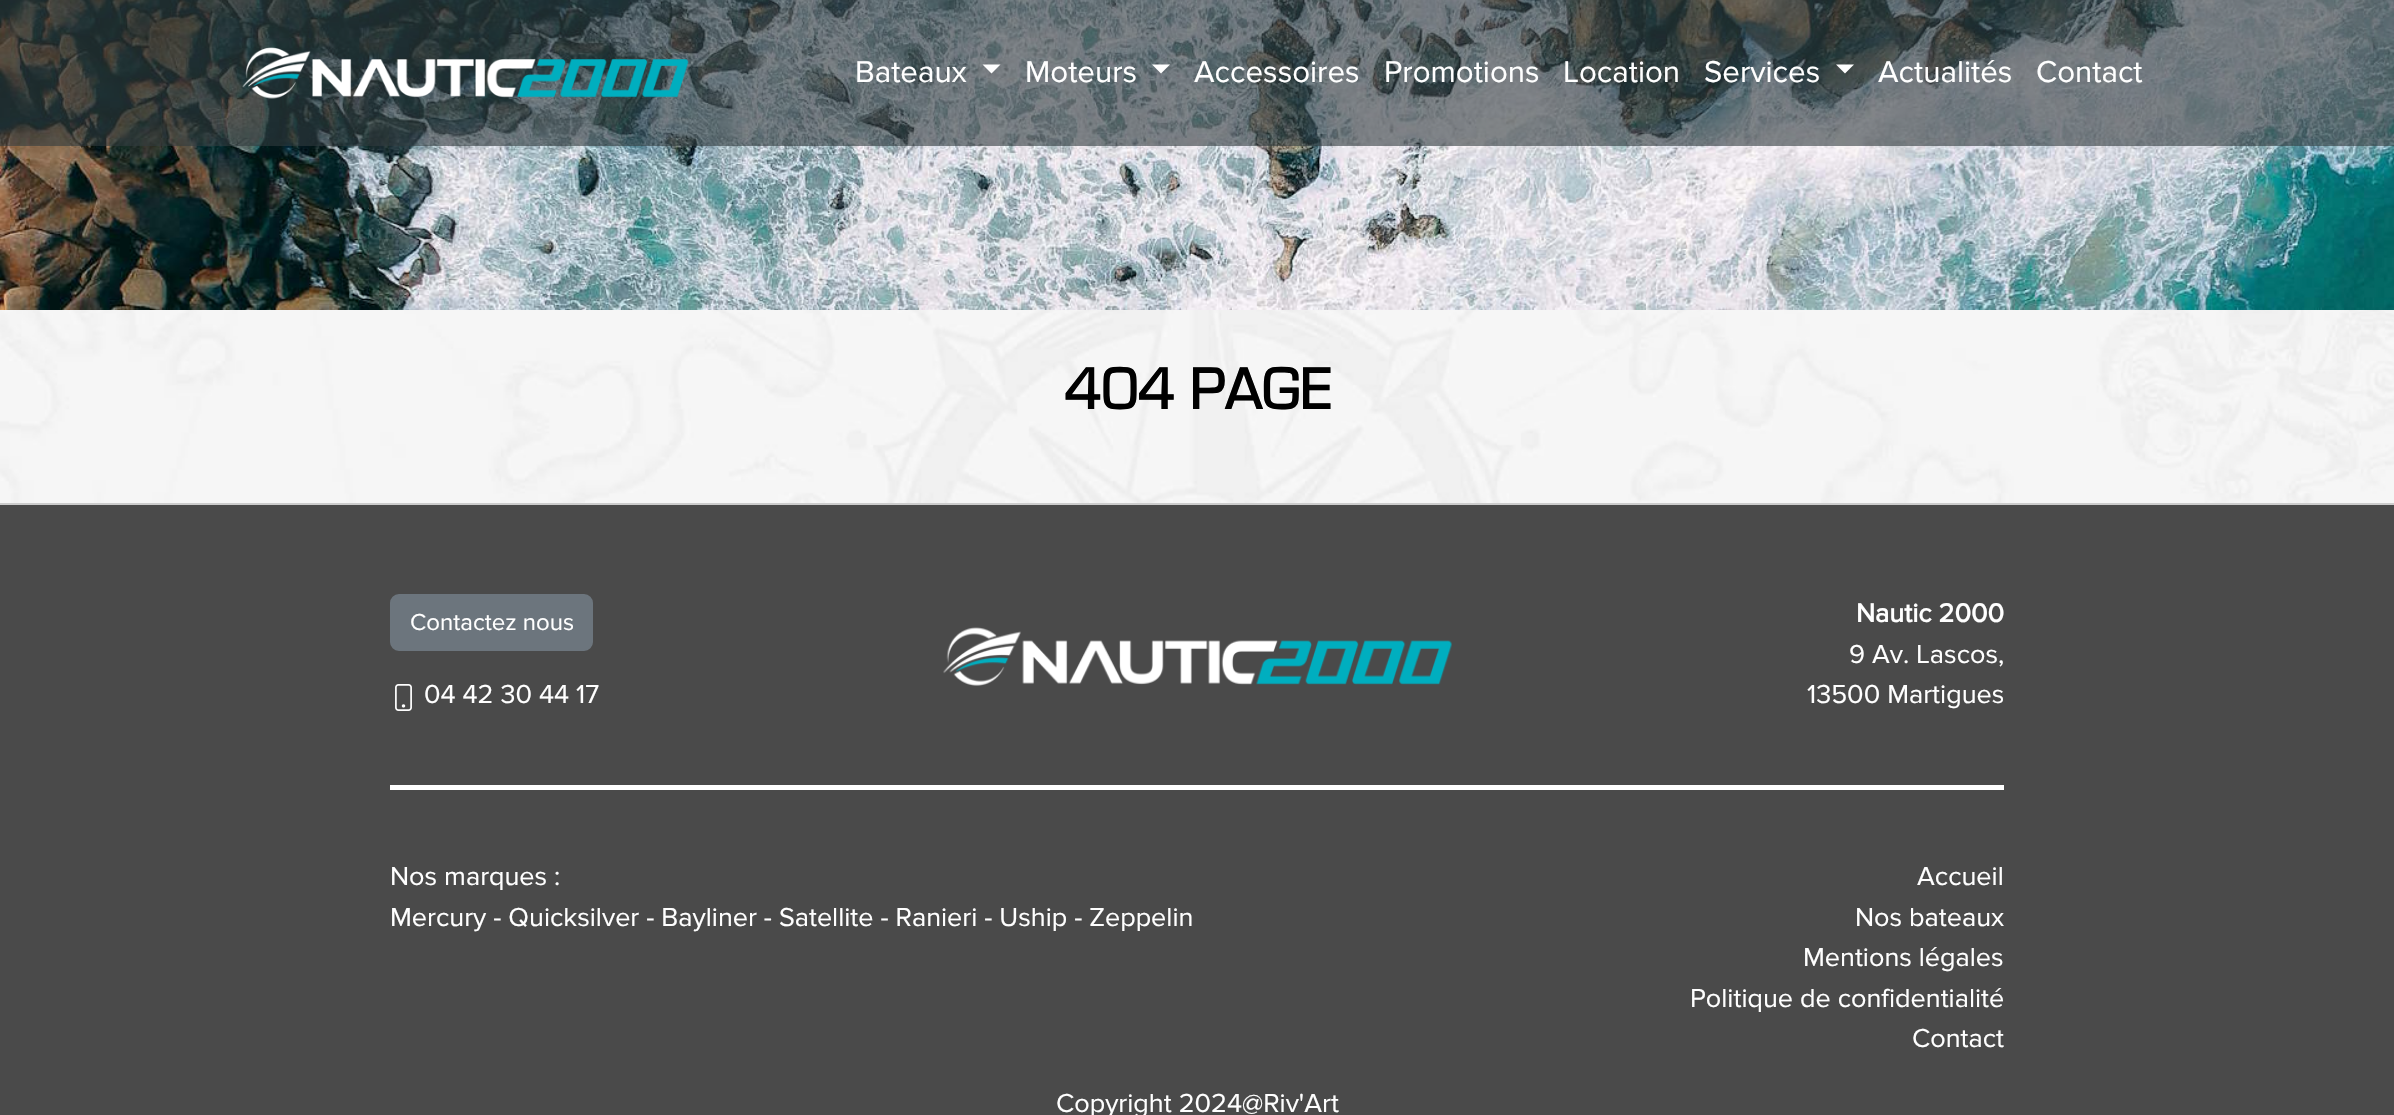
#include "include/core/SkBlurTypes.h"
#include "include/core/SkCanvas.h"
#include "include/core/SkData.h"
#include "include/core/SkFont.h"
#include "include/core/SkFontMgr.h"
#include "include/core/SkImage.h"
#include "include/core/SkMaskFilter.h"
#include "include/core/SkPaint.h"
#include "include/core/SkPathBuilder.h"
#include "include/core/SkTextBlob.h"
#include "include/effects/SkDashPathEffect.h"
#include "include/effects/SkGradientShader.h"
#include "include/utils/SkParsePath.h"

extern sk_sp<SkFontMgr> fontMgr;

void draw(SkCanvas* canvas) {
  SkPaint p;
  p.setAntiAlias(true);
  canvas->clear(SK_ColorWHITE);
  canvas->drawImageRect(SkImages::DeferredFromEncodedData(SkData::MakeFromFileName("images/1.png")), SkRect::MakeLTRB(0, 310, 2394, 503), SkSamplingOptions());
  canvas->drawImageRect(SkImages::DeferredFromEncodedData(SkData::MakeFromFileName("images/2.png")), SkRect::MakeLTRB(0, 0, 2394, 310), SkSamplingOptions());
  p.setColor(SkColorSetARGB(153, 48, 59, 62));
  canvas->drawRect(SkRect::MakeLTRB(0, 0, 2394, 146), p);
  canvas->drawImageRect(SkImages::DeferredFromEncodedData(SkData::MakeFromFileName("images/3.png")), SkRect::MakeLTRB(242, 47, 689, 99), SkSamplingOptions());
  p.setColor(SK_ColorWHITE);
  canvas->drawPath(SkPathBuilder().moveTo(982.5f, 64.5f).lineTo(1000.5f, 64.5f).lineTo(991.5f, 73.5f).close().detach(), p);
  canvas->drawPath(SkPathBuilder().moveTo(1152, 64.5f).lineTo(1170, 64.5f).lineTo(1161, 73.5f).close().detach(), p);
  canvas->drawPath(SkPathBuilder().moveTo(1836, 64.5f).lineTo(1854, 64.5f).lineTo(1845, 73.5f).close().detach(), p);
  p.setColor(SkColorSetRGB(74, 74, 74));
  canvas->drawRect(SkRect::MakeLTRB(0, 505, 2394, 1115), p);
  p.setColor(SkColorSetRGB(204, 204, 204));
  canvas->drawRect(SkRect::MakeLTRB(0, 503, 2394, 505), p);
  p.setColor(SkColorSetRGB(108, 117, 125));
  canvas->drawRoundRect(SkRect::MakeLTRB(391, 595, 592, 650), 8, 8, p);
  p.setStyle(SkPaint::kStroke_Style);
  p.setStrokeWidth(2);
  canvas->drawRoundRect(SkRect::MakeLTRB(391, 595, 592, 650), 8, 8, p);
  canvas->drawImageRect(SkImages::DeferredFromEncodedData(SkData::MakeFromFileName("images/4.png")), SkRect::MakeLTRB(395, 684, 412, 711), SkSamplingOptions());
  canvas->drawImageRect(SkImages::DeferredFromEncodedData(SkData::MakeFromFileName("images/5.png")), SkRect::MakeLTRB(943, 627, 1452, 686), SkSamplingOptions());
  p.setStyle(SkPaint::kFill_Style);
  p.setColor(SK_ColorWHITE);
  canvas->drawRect(SkRect::MakeLTRB(390, 785, 2004, 790), p);
  SkFont font1(fontMgr->matchFamilyStyle("Proxima Nova", SkFontStyle::Normal()), 31.25f);
  font1.setSubpixel(true);
  canvas->drawString("Bateaux", 855, 82, font1, p);
  canvas->drawString("Moteurs", 1025, 82, font1, p);
  canvas->drawString("Accessoires", 1194, 82, font1, p);
  canvas->drawString("Promotions", 1384, 82, font1, p);
  canvas->drawString("Location", 1563, 82, font1, p);
  canvas->drawString("Services", 1704, 82, font1, p);
  canvas->drawString("Actualités", 1878, 82, font1, p);
  canvas->drawString("Contact", 2036, 82, font1, p);
  SkFont font2(fontMgr->matchFamilyStyle("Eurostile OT", SkFontStyle::Bold()), 60);
  font2.setSubpixel(true);
  p.setColor(SK_ColorBLACK);
  canvas->drawString("404 PAGE", 1064, 409, font2, p);
  SkFont font3(fontMgr->matchFamilyStyle("Proxima Nova", SkFontStyle::Normal()), 24);
  font3.setSubpixel(true);
  p.setColor(SK_ColorWHITE);
  canvas->drawString("Contactez nous", 410, 630, font3, p);
  SkFont font4(fontMgr->matchFamilyStyle("Proxima Nova", SkFontStyle::Normal()), 27);
  font4.setSubpixel(true);
  canvas->drawString("04 42 30 44 17", 424, 703, font4, p);
  SkFont font5(fontMgr->matchFamilyStyle("Proxima Nova", SkFontStyle::Bold()), 27);
  font5.setSubpixel(true);
  canvas->drawString("Nautic 2000", 1856, 622, font5, p);
  canvas->drawString("9 Av. Lascos,", 1849, 663, font4, p);
  canvas->drawString("13500 Martigues", 1807, 703, font4, p);
  canvas->drawString("Nos marques :", 390, 885, font4, p);
  canvas->drawString("Mercury - Quicksilver - Bayliner - Satellite - Ranieri - Uship - Zeppelin", 390, 926, font4, p);
  canvas->drawString("Accueil", 1917, 885, font4, p);
  canvas->drawString("Nos bateaux", 1855, 926, font4, p);
  canvas->drawString("Mentions légales", 1803, 966, font4, p);
  canvas->drawString("Politique de confidentialité", 1690, 1007, font4, p);
  canvas->drawString("Contact", 1912, 1047, font4, p);
  canvas->drawString("Copyright 2024@Riv'Art", 1056, 1112, font4, p);
}
